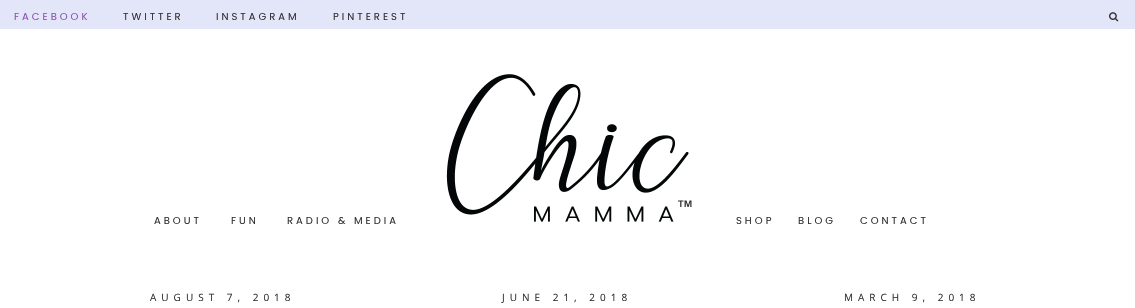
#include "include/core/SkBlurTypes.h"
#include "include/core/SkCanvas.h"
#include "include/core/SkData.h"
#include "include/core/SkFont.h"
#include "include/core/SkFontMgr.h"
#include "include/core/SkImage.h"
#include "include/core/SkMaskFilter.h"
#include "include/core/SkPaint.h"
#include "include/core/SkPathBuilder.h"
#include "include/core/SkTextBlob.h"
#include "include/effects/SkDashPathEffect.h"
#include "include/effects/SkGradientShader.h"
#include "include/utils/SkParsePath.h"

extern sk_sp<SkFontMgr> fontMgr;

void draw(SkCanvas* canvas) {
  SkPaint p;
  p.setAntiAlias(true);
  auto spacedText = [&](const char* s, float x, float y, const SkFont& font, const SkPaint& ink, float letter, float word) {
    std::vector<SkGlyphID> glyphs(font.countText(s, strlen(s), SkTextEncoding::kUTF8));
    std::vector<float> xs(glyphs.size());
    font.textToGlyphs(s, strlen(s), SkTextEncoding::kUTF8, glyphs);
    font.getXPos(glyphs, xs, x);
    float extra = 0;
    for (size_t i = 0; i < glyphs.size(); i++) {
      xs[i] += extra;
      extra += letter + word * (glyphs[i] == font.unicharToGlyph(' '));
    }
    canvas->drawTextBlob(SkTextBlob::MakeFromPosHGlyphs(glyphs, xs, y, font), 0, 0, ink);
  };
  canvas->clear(SK_ColorWHITE);
  p.setColor(SkColorSetRGB(227, 229, 249));
  canvas->drawRect(SkRect::MakeLTRB(0, 0, 1135, 29), p);
  canvas->drawImageRect(SkImages::DeferredFromEncodedData(SkData::MakeFromFileName("images/1.png")), SkRect::MakeLTRB(1109, 12, 1119, 22), SkSamplingOptions());
  canvas->drawImageRect(SkImages::DeferredFromEncodedData(SkData::MakeFromFileName("images/2.png")), SkRect::MakeLTRB(446, 74, 692, 222), SkSamplingOptions());
  SkFont font1(fontMgr->matchFamilyStyle("Poppins", SkFontStyle::Normal()), 10);
  font1.setSubpixel(true);
  p.setColor(SkColorSetRGB(139, 83, 180));
  spacedText("FACEBOOK", 14, 20, font1, p, 3, 0);
  p.setColor(SkColorSetRGB(51, 51, 51));
  spacedText("TWITTER", 123, 20, font1, p, 3, 0);
  spacedText("INSTAGRAM", 216, 20, font1, p, 3, 0);
  spacedText("PINTEREST", 333, 20, font1, p, 3, 0);
  spacedText("ABOUT", 154, 224, font1, p, 3, 0);
  spacedText("FUN", 231, 224, font1, p, 3, 0);
  spacedText("RADIO & MEDIA", 287, 224, font1, p, 3, 0);
  spacedText("SHOP", 736, 224, font1, p, 3, 0);
  spacedText("BLOG", 798, 224, font1, p, 3, 0);
  spacedText("CONTACT", 860, 224, font1, p, 3, 0);
  SkFont font2(fontMgr->matchFamilyStyle("Open Sans", SkFontStyle::Normal()), 10);
  font2.setSubpixel(true);
  spacedText("AUGUST 7, 2018", 150, 301, font2, p, 5, 0);
  spacedText("JUNE 21, 2018", 502, 301, font2, p, 5, 0);
  spacedText("MARCH 9, 2018", 844, 301, font2, p, 5, 0);
}
